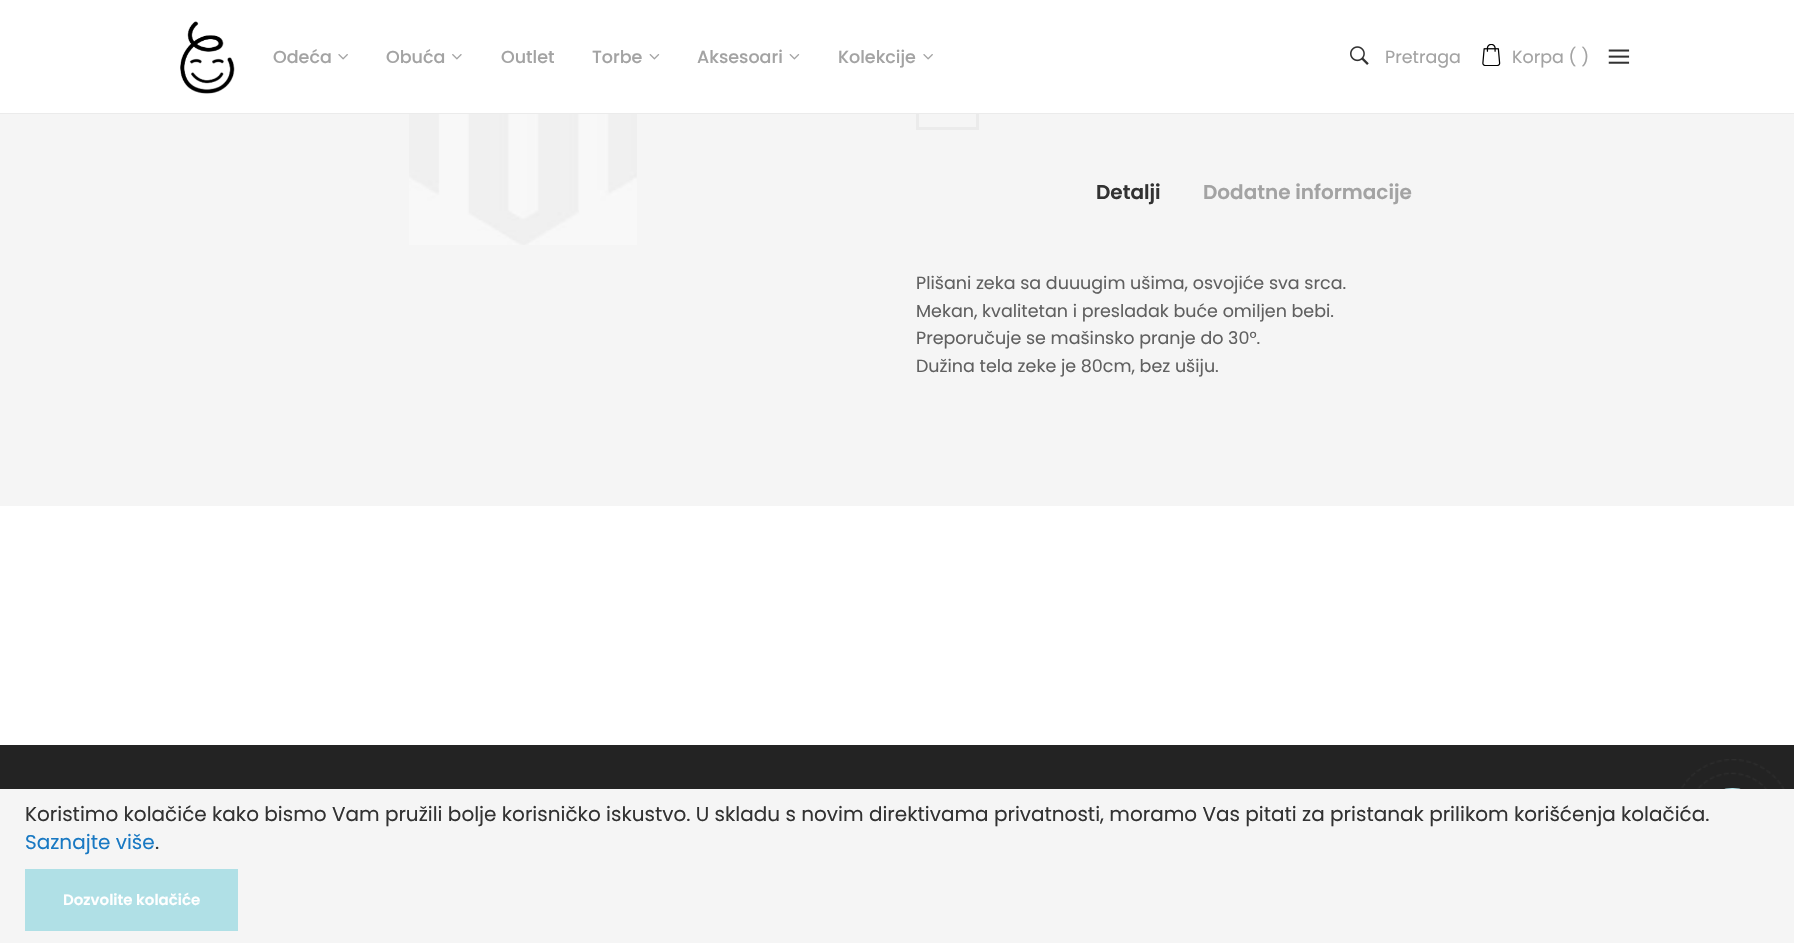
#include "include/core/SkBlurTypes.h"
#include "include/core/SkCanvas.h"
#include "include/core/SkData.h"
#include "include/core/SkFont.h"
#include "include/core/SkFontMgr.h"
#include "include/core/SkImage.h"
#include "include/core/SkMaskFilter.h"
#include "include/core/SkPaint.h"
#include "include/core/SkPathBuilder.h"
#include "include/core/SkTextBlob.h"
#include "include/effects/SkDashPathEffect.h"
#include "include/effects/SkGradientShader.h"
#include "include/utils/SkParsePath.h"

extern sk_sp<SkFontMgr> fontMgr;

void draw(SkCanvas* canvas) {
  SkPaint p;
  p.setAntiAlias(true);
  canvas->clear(SK_ColorWHITE);
  p.setColor(SkColorSetRGB(245, 245, 245));
  canvas->drawRect(SkRect::MakeLTRB(148, 114, 1794, 506), p);
  p.setStyle(SkPaint::kStroke_Style);
  p.setStrokeWidth(3);
  p.setColor(SkColorSetRGB(235, 235, 235));
  canvas->drawRect(SkRect::MakeLTRB(917.5f, 69.5f, 977.5f, 128.5f), p);
  p.setStyle(SkPaint::kFill_Style);
  p.setColor(SK_ColorWHITE);
  canvas->drawRect(SkRect::MakeLTRB(916, 68, 979, 113), p);
  p.setColor(SkColorSetRGB(235, 235, 235));
  canvas->drawRect(SkRect::MakeLTRB(0, 113, 1794, 114), p);
  canvas->drawImageRect(SkImages::DeferredFromEncodedData(SkData::MakeFromFileName("images/1.png")), SkRect::MakeLTRB(180, 21, 235, 94), SkSamplingOptions());
  canvas->drawImageRect(SkImages::DeferredFromEncodedData(SkData::MakeFromFileName("images/2.png")), SkRect::MakeLTRB(338, 54, 348, 60), SkSamplingOptions());
  canvas->drawImageRect(SkImages::DeferredFromEncodedData(SkData::MakeFromFileName("images/3.png")), SkRect::MakeLTRB(452, 54, 462, 60), SkSamplingOptions());
  canvas->drawImageRect(SkImages::DeferredFromEncodedData(SkData::MakeFromFileName("images/4.png")), SkRect::MakeLTRB(649, 54, 660, 60), SkSamplingOptions());
  canvas->drawImageRect(SkImages::DeferredFromEncodedData(SkData::MakeFromFileName("images/4.png")), SkRect::MakeLTRB(789, 54, 800, 60), SkSamplingOptions());
  canvas->drawImageRect(SkImages::DeferredFromEncodedData(SkData::MakeFromFileName("images/2.png")), SkRect::MakeLTRB(923, 54, 933, 60), SkSamplingOptions());
  canvas->drawImageRect(SkImages::DeferredFromEncodedData(SkData::MakeFromFileName("images/5.png")), SkRect::MakeLTRB(1350, 46, 1369, 65), SkSamplingOptions());
  canvas->drawImageRect(SkImages::DeferredFromEncodedData(SkData::MakeFromFileName("images/6.png")), SkRect::MakeLTRB(1482, 44, 1501, 66), SkSamplingOptions());
  canvas->drawImageRect(SkImages::DeferredFromEncodedData(SkData::MakeFromFileName("images/7.png")), SkRect::MakeLTRB(1608, 49, 1630, 64), SkSamplingOptions());
  p.setColor(SkColorSetRGB(245, 245, 245));
  canvas->drawRect(SkRect::MakeLTRB(0, 114, 148, 506), p);
  canvas->drawImageRect(SkImages::DeferredFromEncodedData(SkData::MakeFromFileName("images/8.png")), SkRect::MakeLTRB(409, 114, 637, 245), SkSamplingOptions());
  p.setColor(SkColorSetRGB(35, 35, 35));
  canvas->drawRect(SkRect::MakeLTRB(0, 745, 1794, 789), p);
  canvas->drawImageRect(SkImages::DeferredFromEncodedData(SkData::MakeFromFileName("images/9.png")), SkRect::MakeLTRB(1681, 759, 1785, 789), SkSamplingOptions());
  p.setColor(SkColorSetRGB(176, 224, 230));
  canvas->drawRoundRect(SkRect::MakeLTRB(1701, 788, 1764, 850), 31, 31, p);
  p.setColor(SkColorSetRGB(245, 245, 245));
  canvas->drawRect(SkRect::MakeLTRB(0, 789, 1794, 943), p);
  p.setColor(SkColorSetRGB(176, 224, 230));
  canvas->drawRect(SkRect::MakeLTRB(25, 869, 238, 931), p);
  SkFont font1(fontMgr->matchFamilyStyle("Poppins", SkFontStyle(500, SkFontStyle::kNormal_Width, SkFontStyle::kUpright_Slant)), 17.5f);
  font1.setSubpixel(true);
  p.setColor(SkColorSetRGB(163, 163, 163));
  canvas->drawString("Odeća", 273, 63, font1, p);
  canvas->drawString("Obuća", 386, 63, font1, p);
  canvas->drawString("Outlet", 501, 63, font1, p);
  canvas->drawString("Torbe", 592, 63, font1, p);
  canvas->drawString("Aksesoari", 697, 63, font1, p);
  canvas->drawString("Kolekcije", 838, 63, font1, p);
  SkFont font2(fontMgr->matchFamilyStyle("Poppins", SkFontStyle::Normal()), 17.5f);
  font2.setSubpixel(true);
  canvas->drawString("Pretraga", 1385, 63, font2, p);
  canvas->drawString("Korpa ( )", 1512, 63, font2, p);
  SkFont font3(fontMgr->matchFamilyStyle("Poppins", SkFontStyle(600, SkFontStyle::kNormal_Width, SkFontStyle::kUpright_Slant)), 20);
  font3.setSubpixel(true);
  p.setColor(SkColorSetRGB(50, 50, 50));
  canvas->drawString("Detalji", 1096, 199, font3, p);
  p.setColor(SkColorSetRGB(163, 163, 163));
  canvas->drawString("Dodatne informacije", 1203, 199, font3, p);
  p.setColor(SkColorSetRGB(96, 96, 96));
  canvas->drawString("Plišani zeka sa duuugim ušima, osvojiće sva srca.", 916, 289, font2, p);
  canvas->drawString("Mekan, kvalitetan i presladak buće omiljen bebi.", 916, 317, font2, p);
  canvas->drawString("Preporučuje se mašinsko pranje do 30°.", 916, 344, font2, p);
  canvas->drawString("Dužina tela zeke je 80cm, bez ušiju.", 916, 372, font2, p);
  SkFont font4(fontMgr->matchFamilyStyle("Poppins", SkFontStyle::Normal()), 20);
  font4.setSubpixel(true);
  p.setColor(SkColorSetRGB(50, 50, 50));
  canvas->drawString("Koristimo kolačiće kako bismo Vam pružili bolje korisničko iskustvo. U skladu s novim direktivama privatnosti, moramo Vas pitati za pristanak prilikom korišćenja kolačića.", 25, 821, font4, p);
  p.setColor(SkColorSetRGB(25, 121, 195));
  canvas->drawString("Saznajte više", 25, 849, font4, p);
  p.setColor(SkColorSetRGB(50, 50, 50));
  canvas->drawString(".", 155, 849, font4, p);
  SkFont font5(fontMgr->matchFamilyStyle("Poppins", SkFontStyle(600, SkFontStyle::kNormal_Width, SkFontStyle::kUpright_Slant)), 15);
  font5.setSubpixel(true);
  p.setColor(SK_ColorWHITE);
  canvas->drawString("Dozvolite kolačiće", 63, 905, font5, p);
}
